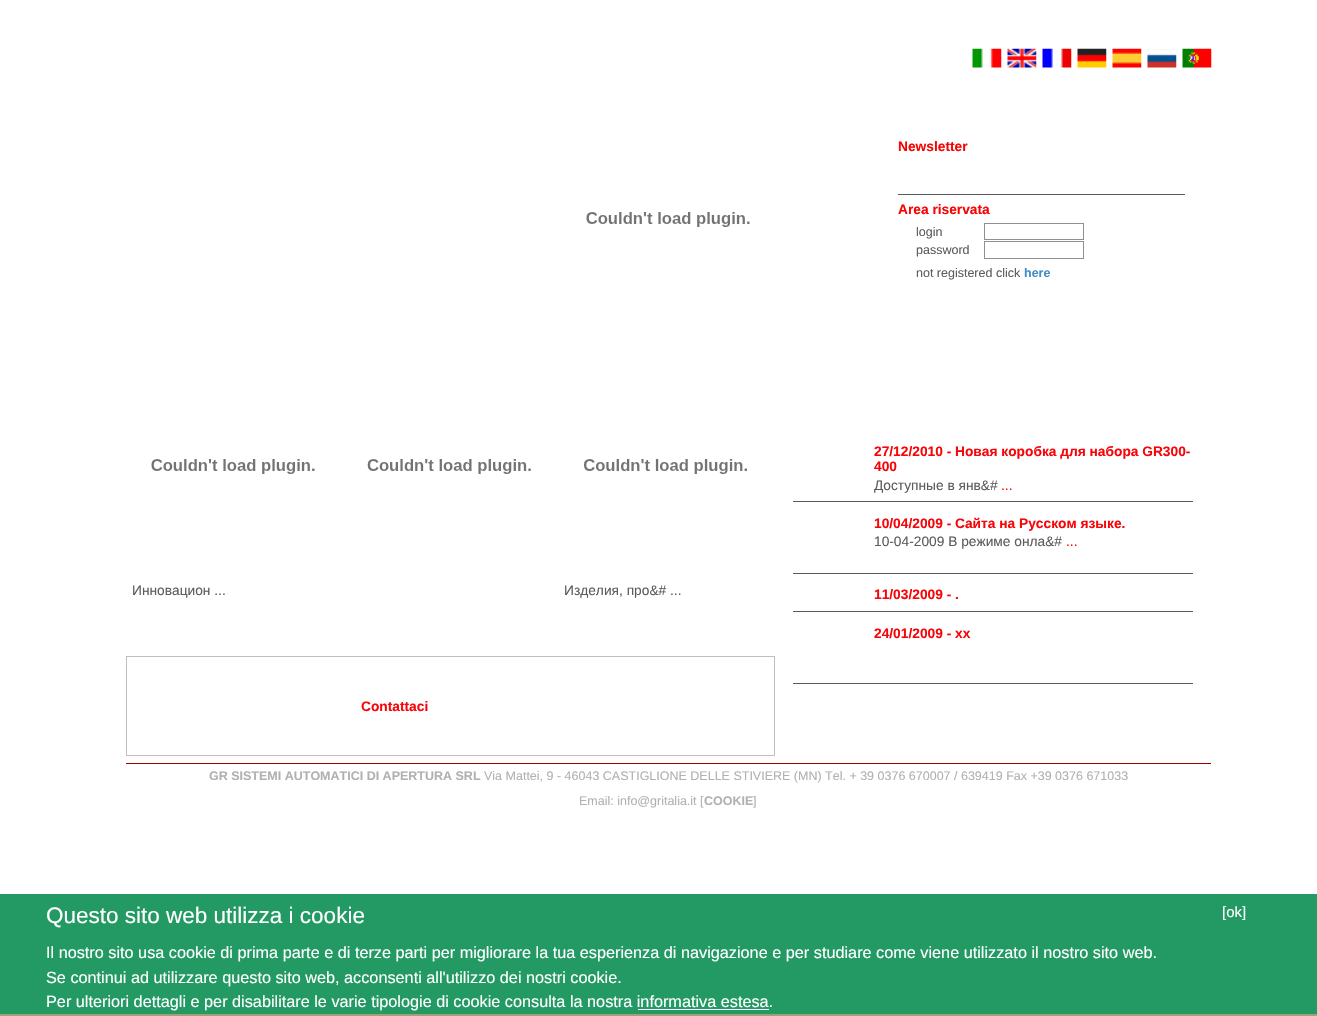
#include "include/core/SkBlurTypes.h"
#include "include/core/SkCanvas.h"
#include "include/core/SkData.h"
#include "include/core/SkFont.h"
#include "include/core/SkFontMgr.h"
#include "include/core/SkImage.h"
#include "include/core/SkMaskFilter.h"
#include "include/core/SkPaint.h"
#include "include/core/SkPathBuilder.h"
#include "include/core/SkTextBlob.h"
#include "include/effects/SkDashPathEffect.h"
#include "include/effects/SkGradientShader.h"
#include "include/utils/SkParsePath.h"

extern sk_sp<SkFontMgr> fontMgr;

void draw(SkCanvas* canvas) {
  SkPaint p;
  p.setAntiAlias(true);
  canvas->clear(SK_ColorWHITE);
  canvas->drawImageRect(SkImages::DeferredFromEncodedData(SkData::MakeFromFileName("images/1.png")), SkRect::MakeLTRB(972, 48, 1002, 68), SkSamplingOptions());
  canvas->drawImageRect(SkImages::DeferredFromEncodedData(SkData::MakeFromFileName("images/2.png")), SkRect::MakeLTRB(1007, 48, 1037, 68), SkSamplingOptions());
  canvas->drawImageRect(SkImages::DeferredFromEncodedData(SkData::MakeFromFileName("images/3.png")), SkRect::MakeLTRB(1042, 48, 1072, 68), SkSamplingOptions());
  canvas->drawImageRect(SkImages::DeferredFromEncodedData(SkData::MakeFromFileName("images/4.png")), SkRect::MakeLTRB(1077, 48, 1107, 68), SkSamplingOptions());
  canvas->drawImageRect(SkImages::DeferredFromEncodedData(SkData::MakeFromFileName("images/5.png")), SkRect::MakeLTRB(1112, 48, 1142, 68), SkSamplingOptions());
  canvas->drawImageRect(SkImages::DeferredFromEncodedData(SkData::MakeFromFileName("images/6.png")), SkRect::MakeLTRB(1147, 49, 1177, 68), SkSamplingOptions());
  canvas->drawImageRect(SkImages::DeferredFromEncodedData(SkData::MakeFromFileName("images/7.png")), SkRect::MakeLTRB(1182, 48, 1212, 68), SkSamplingOptions());
  canvas->drawImageRect(SkImages::DeferredFromEncodedData(SkData::MakeFromFileName("images/8.png")), SkRect::MakeLTRB(586, 212, 750, 227), SkSamplingOptions());
  p.setColor(SkColorSetRGB(91, 91, 91));
  canvas->drawRect(SkRect::MakeLTRB(898, 194, 1185, 195), p);
  p.setStyle(SkPaint::kStroke_Style);
  p.setStrokeWidth(1);
  p.setColor(SkColorSetRGB(143, 143, 143));
  canvas->drawRect(SkRect::MakeLTRB(984.5f, 223.5f, 1083.5f, 239.5f), p);
  canvas->drawRect(SkRect::MakeLTRB(984.5f, 241.5f, 1083.5f, 258.5f), p);
  canvas->drawImageRect(SkImages::DeferredFromEncodedData(SkData::MakeFromFileName("images/9.png")), SkRect::MakeLTRB(367, 459, 531, 474), SkSamplingOptions());
  canvas->drawImageRect(SkImages::DeferredFromEncodedData(SkData::MakeFromFileName("images/8.png")), SkRect::MakeLTRB(151, 459, 315, 474), SkSamplingOptions());
  canvas->drawImageRect(SkImages::DeferredFromEncodedData(SkData::MakeFromFileName("images/10.png")), SkRect::MakeLTRB(584, 459, 747, 474), SkSamplingOptions());
  p.setStyle(SkPaint::kFill_Style);
  p.setColor(SkColorSetRGB(190, 190, 190));
  canvas->drawRect(SkRect::MakeLTRB(126, 656, 775, 657), p);
  canvas->drawRect(SkRect::MakeLTRB(774, 656, 775, 756), p);
  canvas->drawRect(SkRect::MakeLTRB(126, 755, 775, 756), p);
  canvas->drawRect(SkRect::MakeLTRB(126, 656, 127, 756), p);
  p.setColor(SkColorSetRGB(91, 91, 91));
  canvas->drawRect(SkRect::MakeLTRB(793, 501, 1193, 502), p);
  canvas->drawRect(SkRect::MakeLTRB(793, 573, 1193, 574), p);
  canvas->drawRect(SkRect::MakeLTRB(793, 611, 1193, 612), p);
  canvas->drawRect(SkRect::MakeLTRB(793, 683, 1193, 684), p);
  p.setColor(SkColorSetRGB(153, 0, 3));
  canvas->drawRect(SkRect::MakeLTRB(126, 763, 1211, 764), p);
  p.setColor(SkColorSetRGB(35, 153, 99));
  canvas->drawRect(SkRect::MakeLTRB(0, 894, 1317, 1014), p);
  p.setColor(SkColorSetRGB(161, 161, 121));
  canvas->drawRect(SkRect::MakeLTRB(0, 1014, 1317, 1016), p);
  p.setColor(SK_ColorWHITE);
  canvas->drawRect(SkRect::MakeLTRB(638, 1009, 769, 1010), p);
  SkFont font1(fontMgr->matchFamilyStyle("Liberation Sans", SkFontStyle::Bold()), 13.75f);
  font1.setSubpixel(true);
  p.setColor(SkColorSetRGB(247, 3, 3));
  canvas->drawString("Newsletter", 898, 151, font1, p);
  canvas->drawString("Area riservata", 898, 214, font1, p);
  SkFont font2(fontMgr->matchFamilyStyle("Liberation Sans", SkFontStyle::Normal()), 12.5f);
  font2.setSubpixel(true);
  p.setColor(SkColorSetRGB(92, 92, 92));
  canvas->drawString("login", 916, 236, font2, p);
  canvas->drawString("password", 916, 254, font2, p);
  canvas->drawString("not registered click", 916, 277, font2, p);
  SkFont font3(fontMgr->matchFamilyStyle("Liberation Sans", SkFontStyle::Bold()), 12.5f);
  font3.setSubpixel(true);
  p.setColor(SkColorSetRGB(66, 139, 202));
  canvas->drawString("here", 1024, 277, font3, p);
  SkFont font4(fontMgr->matchFamilyStyle("Liberation Sans", SkFontStyle::Normal()), 13.75f);
  font4.setSubpixel(true);
  p.setColor(SkColorSetRGB(92, 92, 92));
  canvas->drawString("Инновацион ...", 132, 595, font4, p);
  canvas->drawString("Изделия, про&# ...", 564, 595, font4, p);
  p.setColor(SkColorSetRGB(248, 5, 9));
  canvas->drawString("Contattaci", 361, 711, font1, p);
  canvas->drawString("27/12/2010 - Новая коробка для набора GR300-", 874, 456, font1, p);
  canvas->drawString("400", 874, 471, font1, p);
  p.setColor(SkColorSetRGB(92, 92, 92));
  canvas->drawString("Доступные в янв&#", 874, 490, font4, p);
  p.setColor(SkColorSetRGB(248, 5, 9));
  canvas->drawString("...", 1001, 490, font4, p);
  canvas->drawString("10/04/2009 - Сайта на Русском языке.", 874, 528, font1, p);
  p.setColor(SkColorSetRGB(92, 92, 92));
  canvas->drawString("10-04-2009 В режиме онла&#", 874, 546, font4, p);
  p.setColor(SkColorSetRGB(248, 5, 9));
  canvas->drawString("...", 1066, 546, font4, p);
  canvas->drawString("11/03/2009 - .", 874, 599, font1, p);
  canvas->drawString("24/01/2009 - xx", 874, 638, font1, p);
  p.setColor(SkColorSetRGB(177, 177, 177));
  canvas->drawString("GR SISTEMI AUTOMATICI DI APERTURA SRL", 209, 780, font3, p);
  canvas->drawString("Via Mattei, 9 - 46043 CASTIGLIONE DELLE STIVIERE (MN) Tel. + 39 0376 670007 / 639419 Fax +39 0376 671033", 484, 780, font2, p);
  canvas->drawString("Email: info@gritalia.it [", 579, 805, font2, p);
  canvas->drawString("COOKIE", 704, 805, font3, p);
  canvas->drawString("]", 753, 805, font2, p);
  SkFont font5(fontMgr->matchFamilyStyle("Liberation Sans", SkFontStyle::Normal()), 22.5f);
  font5.setSubpixel(true);
  p.setColor(SK_ColorWHITE);
  canvas->drawString("Questo sito web utilizza i cookie", 46, 923, font5, p);
  SkFont font6(fontMgr->matchFamilyStyle("Liberation Sans", SkFontStyle::Normal()), 15);
  font6.setSubpixel(true);
  canvas->drawString("[ok]", 1222, 917, font6, p);
  SkFont font7(fontMgr->matchFamilyStyle("Liberation Sans", SkFontStyle::Normal()), 16.25f);
  font7.setSubpixel(true);
  canvas->drawString("Il nostro sito usa cookie di prima parte e di terze parti per migliorare la tua esperienza di navigazione e per studiare come viene utilizzato il nostro sito web.", 46, 958, font7, p);
  canvas->drawString("Se continui ad utilizzare questo sito web, acconsenti all'utilizzo dei nostri cookie.", 46, 983, font7, p);
  canvas->drawString("Per ulteriori dettagli e per disabilitare le varie tipologie di cookie consulta la nostra informativa estesa.", 46, 1007, font7, p);
}
